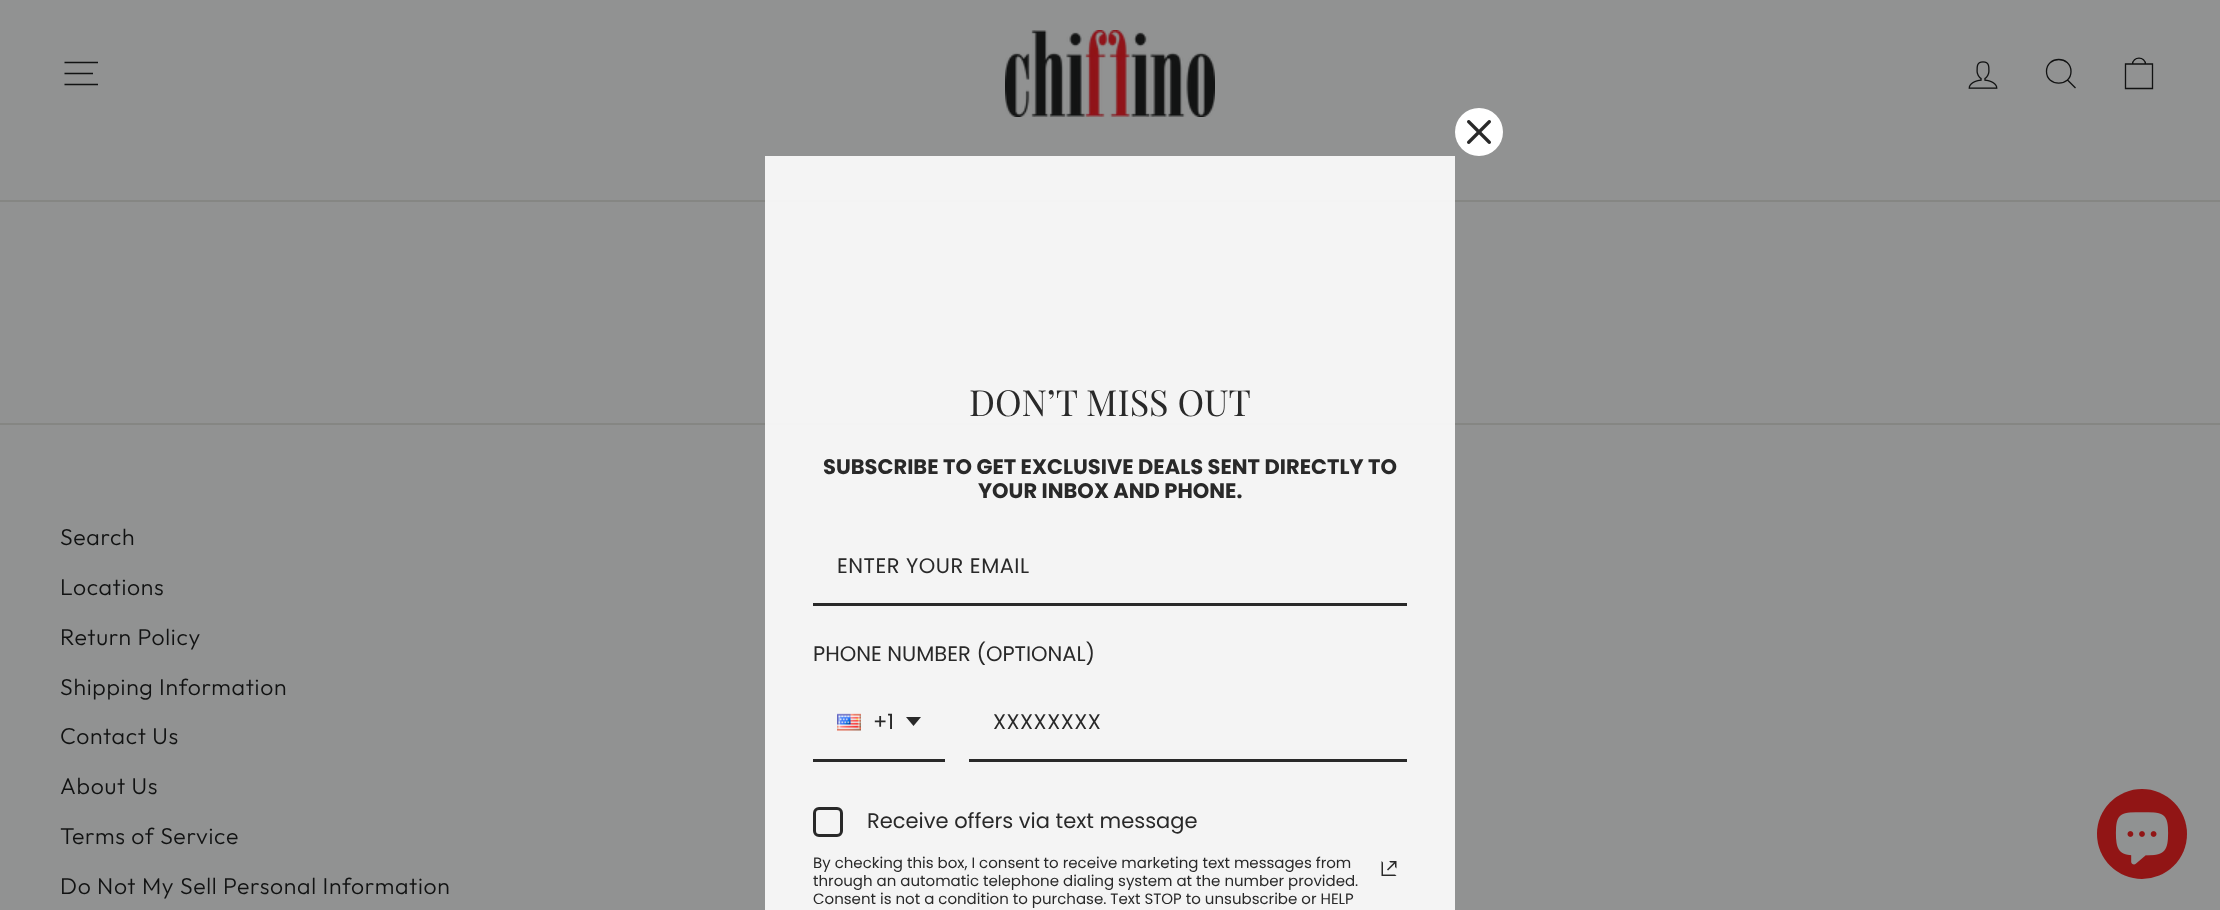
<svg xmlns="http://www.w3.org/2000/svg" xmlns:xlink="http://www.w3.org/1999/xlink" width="2220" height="910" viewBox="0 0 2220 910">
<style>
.cls-1{font:300 23px Outfit;letter-spacing:0.7px;fill:#111212}
.cls-2{font:36px Playfair Display;fill:#292929}
.cls-3{font:bold 21px Poppins;fill:#292929}
.cls-4{font:21px Poppins;letter-spacing:0.5px;fill:#292929}
.cls-5{font:21px Poppins;fill:#292929}
.cls-6{font:15px Poppins;fill:#292929}
</style>
<rect width="100%" height="100%" fill="#919292"/>
<rect fill="#f4f4f4" x="765" y="156" width="690" height="754"/>
<path fill="none" stroke="#111212" stroke-width="1.3" d="M64.5 62.5H98M64.5 73.5H93M64.5 84.5H98"/>
<image xlink:href="image0.png" x="1005" y="30" width="210" height="87"/>
<image xlink:href="image1.png" x="1968" y="61" width="30" height="28"/>
<path fill="none" stroke="#111212" stroke-width="1.3" d="M2071 71.5C2071 87 2046.5 87 2046.5 71.5C2046.5 55.5 2071 55.5 2071 71.5ZM2075.5 88L2067.5 80"/>
<path fill="none" stroke="#111212" stroke-width="1.3" d="M2125.5 64H2152.5V88.5H2125.5ZM2132.5 64.5C2132.5 56 2145.5 56 2145.5 64.5"/>
<rect fill="#858683" x="0" y="200" width="2220" height="2"/>
<rect fill="#f3f3f3" x="765" y="200" width="690" height="2"/>
<rect fill="#858683" x="0" y="423" width="2220" height="2"/>
<rect fill="#f3f3f3" x="765" y="423" width="690" height="2"/>
<circle fill="#ffffff" cx="1479" cy="132" r="24"/>
<image xlink:href="image2.png" x="1467" y="120" width="24" height="24"/>
<rect fill="#292929" x="813" y="603" width="594" height="3"/>
<rect fill="#292929" x="813" y="759" width="132" height="3"/>
<image xlink:href="image3.png" x="837" y="713" width="24" height="18"/>
<path fill="#292929" fill-rule="evenodd" d="M906 717H921L913.5 726Z"/>
<rect fill="#292929" x="969" y="759" width="438" height="3"/>
<rect fill="none" stroke="#292929" stroke-width="3" x="814.5" y="808.5" width="27" height="27" rx="4.5"/>
<image xlink:href="image4.png" x="1381" y="861" width="16" height="15"/>
<circle fill="#911515" cx="2142" cy="834" r="45"/>
<image xlink:href="image5.png" x="2115" y="812" width="54" height="53"/>
<text class="cls-1" x="60" y="545">Search</text>
<text class="cls-1" x="60" y="595">Locations</text>
<text class="cls-1" x="60" y="645">Return Policy</text>
<text class="cls-1" x="60" y="695">Shipping Information</text>
<text class="cls-1" x="60" y="744">Contact Us</text>
<text class="cls-1" x="60" y="794">About Us</text>
<text class="cls-1" x="60" y="844">Terms of Service</text>
<text class="cls-1" x="60" y="894">Do Not My Sell Personal Information</text>
<text class="cls-2" x="969" y="416">DON’T MISS OUT</text>
<text class="cls-3" x="823" y="474">SUBSCRIBE TO GET EXCLUSIVE DEALS SENT DIRECTLY TO</text>
<text class="cls-3" x="978" y="498">YOUR INBOX AND PHONE.</text>
<text class="cls-4" x="837" y="573">ENTER YOUR EMAIL</text>
<text class="cls-5" x="813" y="661">PHONE NUMBER (OPTIONAL)</text>
<text class="cls-5" x="873" y="729">+1</text>
<text class="cls-4" x="993" y="729">XXXXXXXX</text>
<text class="cls-5" x="867" y="828">Receive offers via text message</text>
<text class="cls-6"><tspan x="813" y="868">By checking this box, I consent to receive marketing text messages from</tspan><tspan x="813" y="886">through an automatic telephone dialing system at the number provided.</tspan><tspan x="813" y="904">Consent is not a condition to purchase. Text STOP to unsubscribe or HELP</tspan></text>
</svg>
